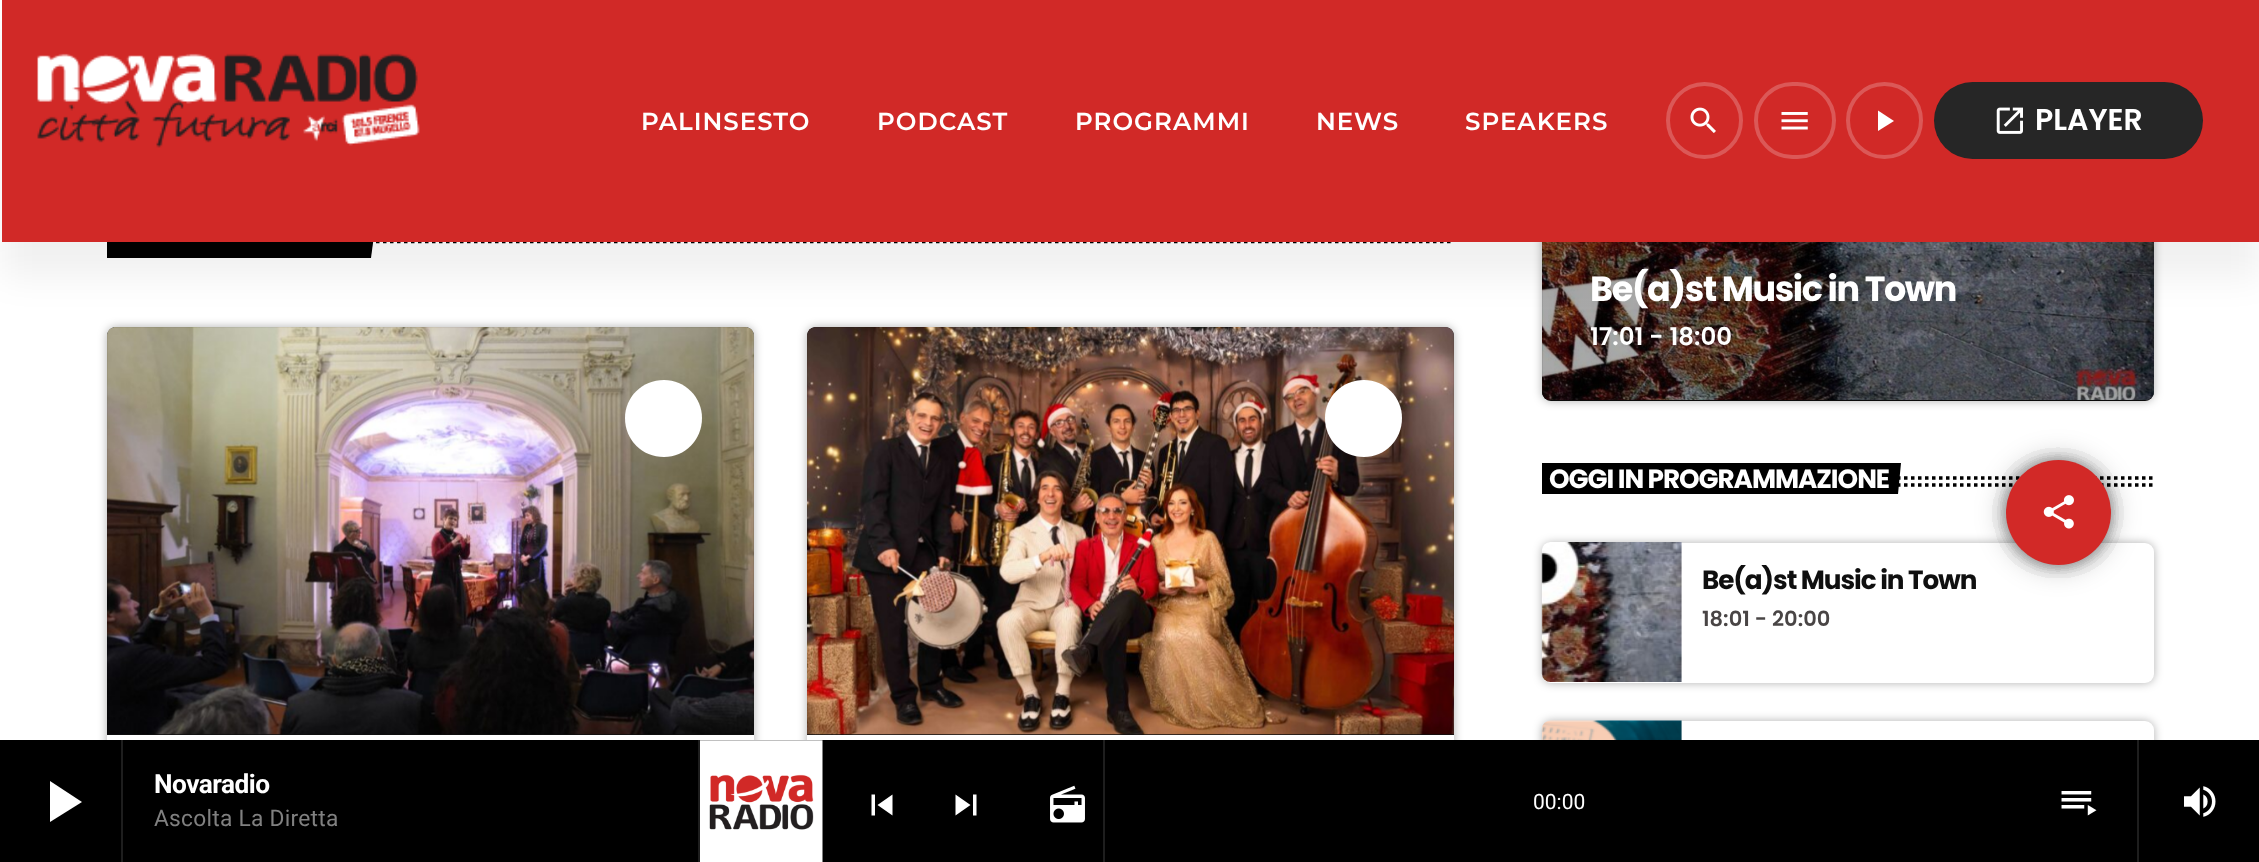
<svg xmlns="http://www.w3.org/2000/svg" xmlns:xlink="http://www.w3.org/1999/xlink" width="2259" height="862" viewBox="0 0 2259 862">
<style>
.cls-1{font:100 24.5px Montserrat;letter-spacing:1px;fill:#ffffff}
.cls-2{font:600 30px Poppins;fill:#ffffff}
.cls-3{font:bold 35px Poppins;letter-spacing:-1.4px;fill:#ffffff}
.cls-4{font:600 24.5px Poppins;fill:#ffffff}
.cls-5{font:bold 26.25px Poppins;letter-spacing:-1.05px;fill:#ffffff}
.cls-6{font:bold 26.25px Poppins;letter-spacing:-1.05px;fill:#0f0f0f}
.cls-7{font:600 21px Poppins;fill:#494545}
.cls-8{font:bold 26.25px Roboto;letter-spacing:-0.5px;fill:#ffffff}
.cls-9{font:22.75px Roboto;letter-spacing:0.25px;fill:#808080}
.cls-10{font:21px Roboto;fill:#ffffff}
</style>
<defs>
<clipPath id="clip1"><rect x="107" y="207" width="275" height="52"/></clipPath>
<linearGradient id="g1" gradientUnits="userSpaceOnUse" x1="1848" y1="16" x2="1848" y2="401"><stop offset="0" stop-color="#000000" stop-opacity="0"/><stop offset="0.4" stop-color="#000000" stop-opacity="0"/><stop offset="0.65" stop-color="#000000" stop-opacity="0.34"/><stop offset="1" stop-color="#000000" stop-opacity="0.34"/></linearGradient>
<clipPath id="clip2"><rect x="1542" y="462" width="366" height="32"/></clipPath>
</defs>
<rect width="100%" height="100%" fill="#ffffff"/>
<path fill="none" stroke="#000000" stroke-width="3.5" stroke-dasharray="3.5 3.5" d="M117 241.5H1451"/>
<g clip-path="url(#clip1)">
<path fill="#000000" d="M92 206H378L371 258H85Z"/>
</g>
<rect fill="#000000" fill-opacity="0.31" filter="blur(5px)" x="107" y="327" width="647" height="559" rx="9"/>
<rect fill="#ffffff" x="107" y="327" width="647" height="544" rx="9"/>
<path fill="#111111" d="M116 327H745C750 327 754 331 754 336V735H107V336C107 331 111 327 116 327Z"/>
<image xlink:href="image4.png" x="107" y="327" width="647" height="408"/>
<rect fill="#000000" fill-opacity="0.31" filter="blur(5px)" x="807" y="327" width="647" height="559" rx="9"/>
<rect fill="#ffffff" x="807" y="327" width="647" height="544" rx="9"/>
<path fill="#111111" d="M816 327H1445C1450 327 1454 331 1454 336V735H807V336C807 331 811 327 816 327Z"/>
<image xlink:href="image5.png" x="807" y="327" width="647" height="408"/>
<rect fill="#000000" fill-opacity="0.31" filter="blur(5px)" x="1542" y="16" width="612" height="385" rx="9"/>
<rect fill="#111111" x="1542" y="16" width="612" height="385" rx="9"/>
<image xlink:href="image6.png" x="1542" y="242" width="612" height="158"/>
<rect fill="url(#g1)" x="1542" y="16" width="612" height="385" rx="9"/>
<rect fill="#000000" fill-opacity="0.06" filter="blur(17.5px)" x="2" y="35" width="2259" height="242"/>
<rect fill="#d12927" x="2" y="0" width="2257" height="242"/>
<image xlink:href="image0.png" x="37" y="53" width="383" height="95"/>
<circle fill="none" stroke="#db5857" stroke-width="4" cx="1704.5" cy="120.5" r="36.5"/>
<image xlink:href="image1.png" x="1690" y="107" width="26" height="26"/>
<rect fill="none" stroke="#db5857" stroke-width="4" x="1756" y="84" width="78" height="73" rx="36.5"/>
<image xlink:href="image2.png" x="1781" y="112" width="27" height="18"/>
<circle fill="none" stroke="#db5857" stroke-width="4" cx="1884.5" cy="120.5" r="36.5"/>
<path fill="#ffffff" d="M1878 110.5L1894 121L1878 131Z"/>
<rect fill="#262626" x="1934" y="82" width="269" height="77" rx="38.5"/>
<image xlink:href="image3.png" x="1996" y="107" width="27" height="27"/>
<path fill="#ffffff" d="M664 380C685 380 702 397 702 418C702 440 685 457 664 457C642 457 625 440 625 418C625 397 642 380 664 380Z"/>
<path fill="#ffffff" d="M1364 380C1385 380 1402 397 1402 418C1402 440 1385 457 1364 457C1342 457 1325 440 1325 418C1325 397 1342 380 1364 380Z"/>
<path fill="none" stroke="#000000" stroke-width="3.5" stroke-dasharray="3.5 3.5" d="M1547 478H2152.5"/>
<path fill="none" stroke="#000000" stroke-width="3.5" stroke-dasharray="3.5 3.5" d="M1547 485H2152.5"/>
<g clip-path="url(#clip2)">
<path fill="#000000" d="M1539 463H1901L1898 494H1535Z"/>
</g>
<rect fill="#000000" fill-opacity="0.31" filter="blur(5px)" x="1542" y="543" width="612" height="140" rx="9"/>
<rect fill="#ffffff" x="1542" y="543" width="612" height="140" rx="9"/>
<image xlink:href="image7.png" x="1541" y="542" width="141" height="140"/>
<rect fill="#000000" fill-opacity="0.31" filter="blur(5px)" x="1542" y="721" width="612" height="140" rx="9"/>
<rect fill="#ffffff" x="1542" y="721" width="612" height="140" rx="9"/>
<image xlink:href="image8.png" x="1541" y="720" width="141" height="20"/>
<rect fill="#000000" fill-opacity="0.2" filter="blur(13px)" x="2000" y="455" width="116" height="116" rx="58"/>
<rect fill="#000000" fill-opacity="0.2" filter="blur(13px)" x="2018" y="473" width="80" height="80" rx="40"/>
<rect fill="#000000" fill-opacity="0.2" filter="blur(13px)" x="2018" y="473" width="80" height="80" rx="40"/>
<rect fill="#000000" fill-opacity="0.2" filter="blur(13px)" x="2018" y="473" width="80" height="80" rx="40"/>
<rect fill="#000000" fill-opacity="0.2" filter="blur(13px)" x="2018" y="473" width="80" height="80" rx="40"/>
<rect fill="#000000" fill-opacity="0.2" filter="blur(13px)" x="2018" y="473" width="80" height="80" rx="40"/>
<rect fill="#000000" fill-opacity="0.2" filter="blur(13px)" x="2018" y="473" width="80" height="80" rx="40"/>
<rect fill="#000000" fill-opacity="0.2" filter="blur(13px)" x="2018" y="473" width="80" height="80" rx="40"/>
<rect fill="#000000" fill-opacity="0.2" filter="blur(13px)" x="2018" y="473" width="80" height="80" rx="40"/>
<rect fill="#000000" fill-opacity="0.2" filter="blur(13px)" x="2018" y="473" width="80" height="80" rx="40"/>
<circle fill="#d22927" cx="2058.5" cy="512.5" r="52.5"/>
<image xlink:href="image9.png" x="2043" y="495" width="31" height="34"/>
<rect fill="#000000" x="0" y="740" width="2259" height="122"/>
<rect fill="#1e1e1e" x="698" y="740" width="2" height="122"/>
<rect fill="#1e1e1e" x="121" y="740" width="2" height="122"/>
<path fill="#ffffff" d="M50 781L82 802L50 822Z"/>
<image xlink:href="image10.png" x="700" y="740" width="123" height="122"/>
<rect fill="#1e1e1e" x="1103" y="740" width="2" height="122"/>
<path fill="#ffffff" d="M877.5 805L892.5 794.5V815.5ZM871.5 794.5H875V815.5H871.5Z"/>
<path fill="#ffffff" d="M973 794.5H976.5V815.5H973ZM955.5 815.5V794.5L970.5 805Z"/>
<image xlink:href="image11.png" x="1050" y="785" width="35" height="38"/>
<image xlink:href="image12.png" x="2061" y="791" width="36" height="25"/>
<rect fill="#1e1e1e" x="2137" y="740" width="2" height="122"/>
<image xlink:href="image13.png" x="2184" y="786" width="32" height="31"/>
<text class="cls-1" x="641" y="130">PALINSESTO</text>
<text class="cls-1" x="877" y="130">PODCAST</text>
<text class="cls-1" x="1075" y="130">PROGRAMMI</text>
<text class="cls-1" x="1316" y="130">NEWS</text>
<text class="cls-1" x="1465" y="130">SPEAKERS</text>
<text class="cls-2" x="2035" y="130">PLAYER</text>
<text class="cls-3" x="1590" y="301">Be(a)st Music in Town</text>
<text class="cls-4" x="1590" y="345">17:01 - 18:00</text>
<text class="cls-5" x="1549" y="488">OGGI IN PROGRAMMAZIONE</text>
<text class="cls-6" x="1702" y="589">Be(a)st Music in Town</text>
<text class="cls-7" x="1702" y="626">18:01 - 20:00</text>
<text class="cls-8" x="154" y="793">Novaradio</text>
<text class="cls-9" x="154" y="826">Ascolta La Diretta</text>
<text class="cls-10" x="1533" y="809">00:00</text>
</svg>
